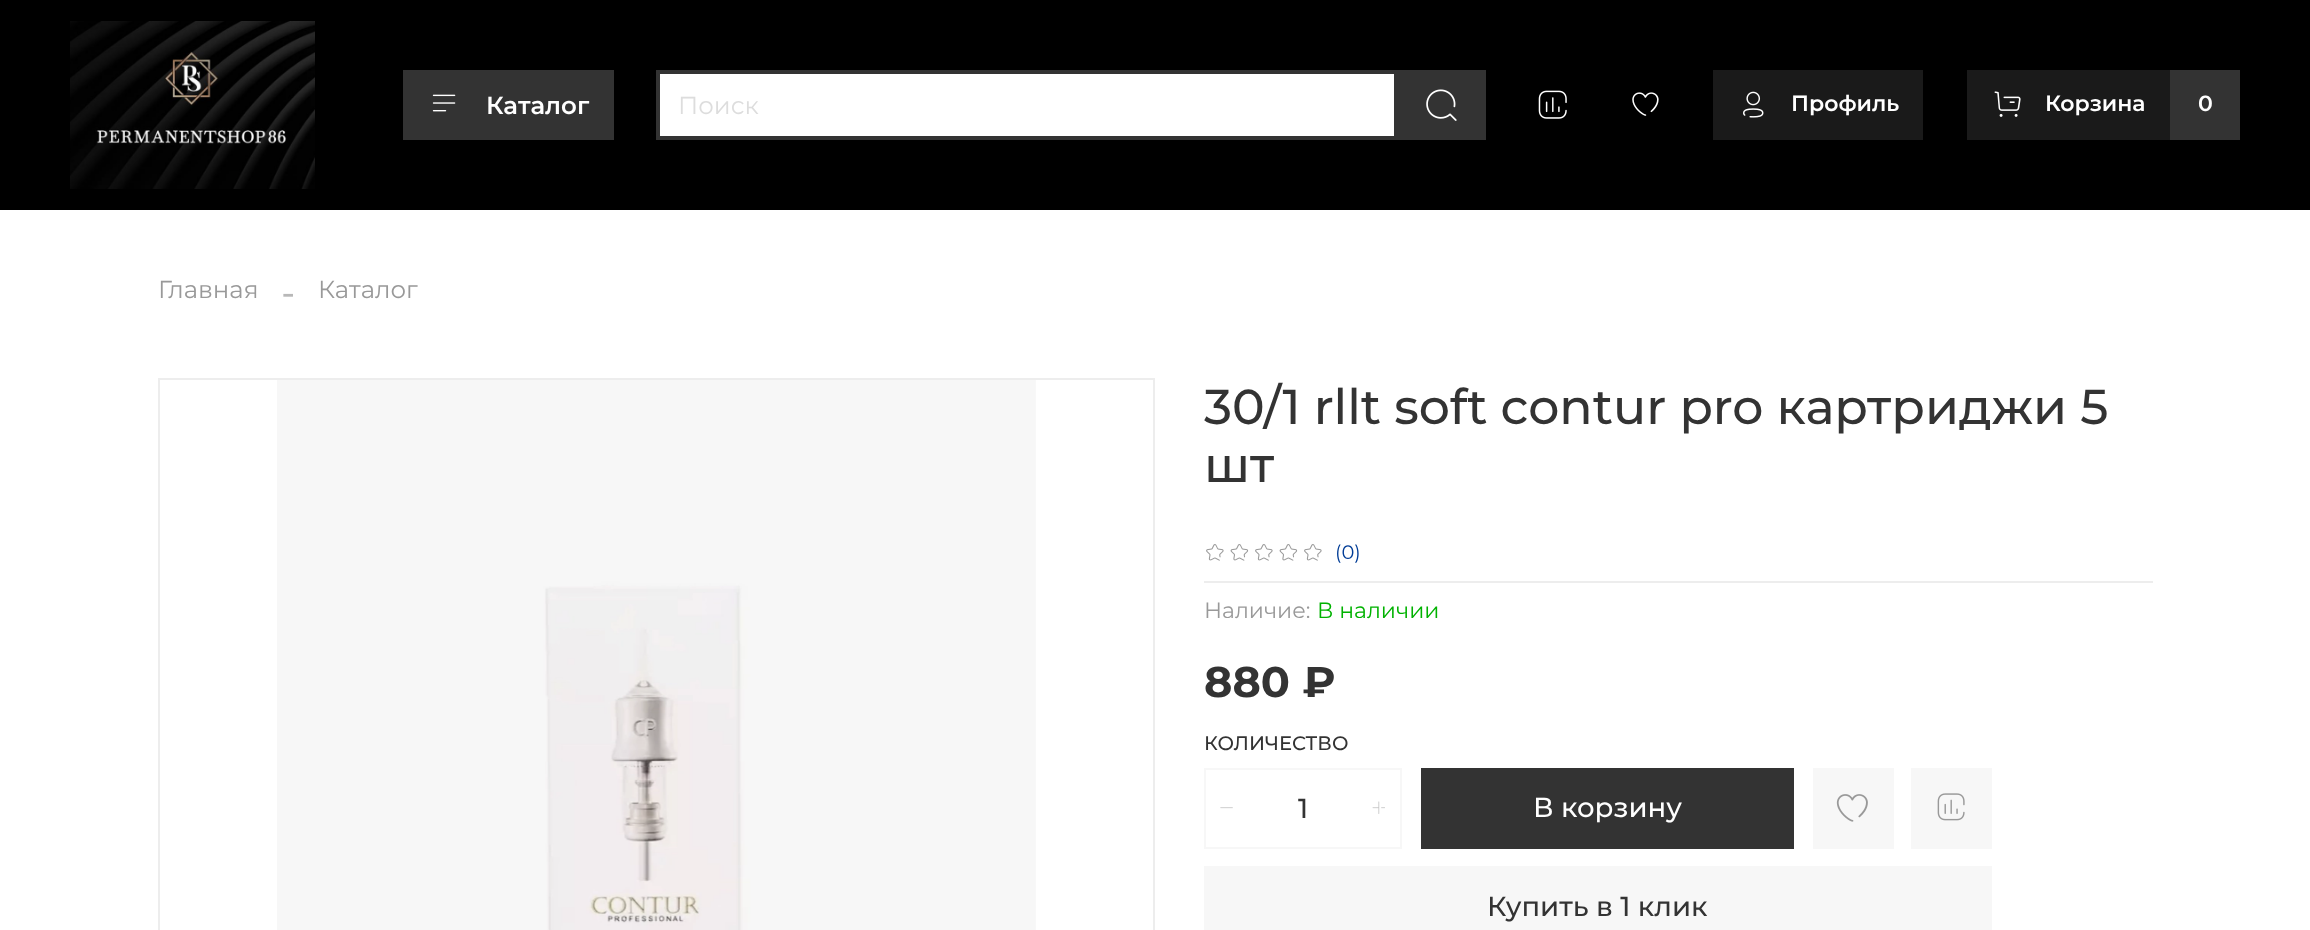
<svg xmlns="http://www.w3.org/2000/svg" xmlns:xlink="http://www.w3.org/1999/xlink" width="2310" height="930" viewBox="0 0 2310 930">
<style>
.cls-1{font:600 24.5px Montserrat;fill:#ffffff}
.cls-2{font:24.5px Montserrat;fill:#dddddd}
.cls-3{font:600 22px Montserrat;fill:#ffffff}
.cls-4{font:24.5px Montserrat;fill:#999999}
.cls-5{font:37px Liberation Serif;fill:#b8b8b8}
.cls-6{font:500 49px Montserrat;fill:#333333}
.cls-7{font:19.5px Montserrat;fill:#003c96}
.cls-8{font:22px Montserrat;fill:#999999}
.cls-9{font:22px Montserrat;fill:#00b200}
.cls-10{font:bold 43px Montserrat;fill:#333333}
.cls-11{font:500 19.5px Montserrat;fill:#333333}
.cls-12{font:500 27.5px Montserrat;fill:#333333}
.cls-13{font:500 27.5px Montserrat;fill:#ffffff}
</style>
<rect width="100%" height="100%" fill="#ffffff"/>
<rect fill="#000000" x="0" y="0" width="2310" height="210"/>
<image xlink:href="image0.png" x="70" y="21" width="245" height="168"/>
<rect fill="#333333" x="403" y="70" width="211" height="70"/>
<image xlink:href="image1.png" x="432" y="94" width="24" height="18"/>
<rect fill="#ffffff" stroke="#333333" stroke-width="4" x="658" y="72" width="738" height="66"/>
<rect fill="#333333" x="1398" y="70" width="88" height="70"/>
<image xlink:href="image2.png" x="1426" y="89" width="31" height="32"/>
<image xlink:href="image3.png" x="1538" y="90" width="29" height="29"/>
<image xlink:href="image4.png" x="1632" y="92" width="27" height="24"/>
<rect fill="#1a1a1a" x="1713" y="70" width="210" height="70"/>
<image xlink:href="image5.png" x="1743" y="91" width="21" height="27"/>
<rect fill="#1a1a1a" x="1967" y="70" width="203" height="70"/>
<image xlink:href="image6.png" x="1994" y="91" width="27" height="26"/>
<rect fill="#333333" x="2170" y="70" width="70" height="70"/>
<rect fill="none" stroke="#ededed" stroke-width="2" x="159" y="379" width="995" height="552"/>
<image xlink:href="image7.png" x="277" y="380" width="759" height="550"/>
<image xlink:href="image8.png" x="1206" y="544" width="18" height="17"/>
<image xlink:href="image9.png" x="1230" y="544" width="19" height="17"/>
<image xlink:href="image8.png" x="1255" y="544" width="18" height="17"/>
<image xlink:href="image9.png" x="1279" y="544" width="19" height="17"/>
<image xlink:href="image8.png" x="1304" y="544" width="18" height="17"/>
<rect fill="#ededed" x="1204" y="581" width="949" height="2"/>
<rect fill="none" stroke="#f7f7f7" stroke-width="2" x="1205" y="769" width="196" height="79"/>
<image xlink:href="image10.png" x="1220" y="807" width="13" height="2"/>
<image xlink:href="image11.png" x="1372" y="801" width="13" height="13"/>
<rect fill="#333333" x="1421" y="768" width="373" height="81"/>
<rect fill="#f7f7f7" x="1813" y="768" width="81" height="81"/>
<image xlink:href="image12.png" x="1836" y="794" width="32" height="28"/>
<rect fill="#f7f7f7" x="1911" y="768" width="81" height="81"/>
<image xlink:href="image13.png" x="1937" y="793" width="28" height="28"/>
<rect fill="#f7f7f7" x="1204" y="866" width="788" height="64"/>
<text class="cls-1" x="486" y="114">Каталог</text>
<text class="cls-2" x="678" y="114">Поиск</text>
<text class="cls-3" x="1791" y="111">Профиль</text>
<text class="cls-3" x="2045" y="111">Корзина</text>
<text class="cls-3" x="2198" y="111">0</text>
<text class="cls-4" x="158" y="298">Главная</text>
<text class="cls-5" x="282" y="304">-</text>
<text class="cls-4" x="318" y="298">Каталог</text>
<text class="cls-6"><tspan x="1204" y="424">30/1 rllt soft contur pro картриджи 5</tspan><tspan x="1204" y="482">шт</tspan></text>
<text class="cls-7" x="1335" y="559">(0)</text>
<text class="cls-8" x="1204" y="618">Наличие:</text>
<text class="cls-9" x="1317" y="618">В наличии</text>
<text class="cls-10" x="1204" y="697">880 ₽</text>
<text class="cls-11" x="1204" y="750">КОЛИЧЕСТВО</text>
<text class="cls-12" x="1298" y="818">1</text>
<text class="cls-13" x="1533" y="817">В корзину</text>
<text class="cls-12" x="1487" y="916">Купить в 1 клик</text>
</svg>
